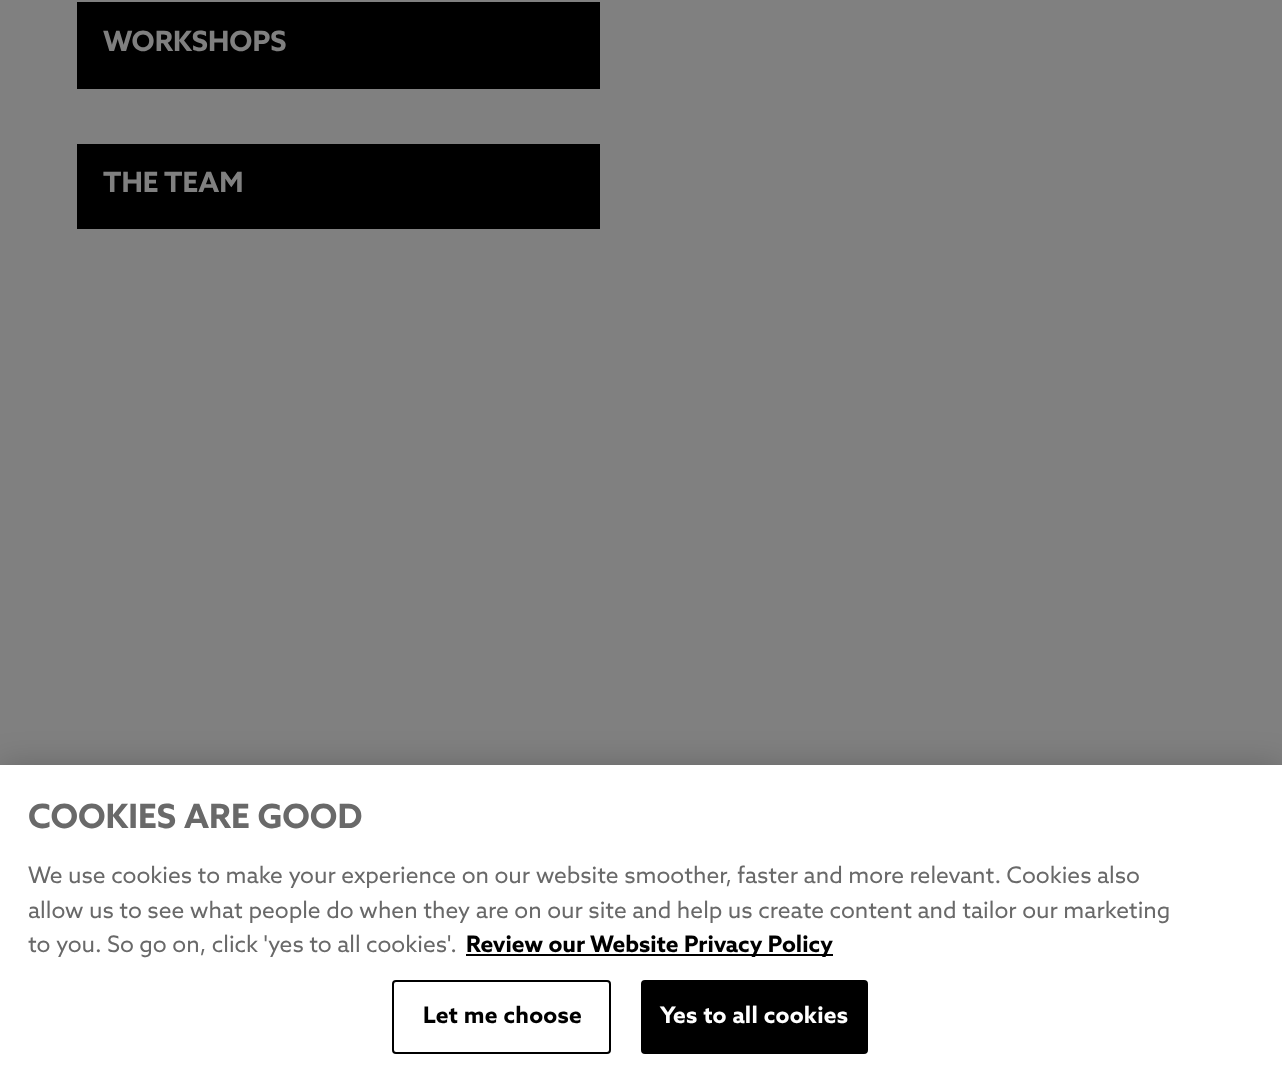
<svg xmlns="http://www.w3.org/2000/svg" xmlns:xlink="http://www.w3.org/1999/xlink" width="1282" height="1080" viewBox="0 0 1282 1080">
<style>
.cls-1{font:bold 28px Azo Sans;fill:#808080}
.cls-2{font:bold 33.5px Azo Sans;fill:#696969}
.cls-3{font:22.75px Azo Sans;fill:#696969}
.cls-4{font:bold 22.75px Azo Sans;fill:#000000}
.cls-5{font:bold 22.75px Azo Sans;letter-spacing:0.25px;fill:#000000}
.cls-6{font:bold 22.75px Azo Sans;letter-spacing:0.25px;fill:#ffffff}
</style>
<rect width="100%" height="100%" fill="#808080"/>
<rect fill="#000000" x="77" y="2" width="523" height="87"/>
<rect fill="#000000" x="77" y="144" width="523" height="85"/>
<rect fill="#000000" fill-opacity="0.2" filter="blur(16px)" x="0" y="765" width="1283" height="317"/>
<rect fill="#ffffff" x="0" y="765" width="1282" height="315"/>
<rect fill="#000000" x="466" y="954" width="367" height="2"/>
<rect fill="none" stroke="#000000" stroke-width="2" x="393" y="981" width="217" height="72" rx="3"/>
<rect fill="#000000" stroke="#000000" stroke-width="2" x="642" y="981" width="225" height="72" rx="3"/>
<text class="cls-1" x="103" y="51">WORKSHOPS</text>
<text class="cls-1" x="103" y="192">THE TEAM</text>
<text class="cls-2" x="28" y="828">COOKIES ARE GOOD</text>
<text class="cls-3"><tspan x="28" y="883">We use cookies to make your experience on our website smoother, faster and more relevant. Cookies also</tspan><tspan x="28" y="918">allow us to see what people do when they are on our site and help us create content and tailor our marketing</tspan><tspan x="28" y="952">to you. So go on, click 'yes to all cookies'.</tspan></text>
<text class="cls-4" x="466" y="952">Review our Website Privacy Policy</text>
<text class="cls-5" x="423" y="1023">Let me choose</text>
<text class="cls-6" x="660" y="1023">Yes to all cookies</text>
</svg>
